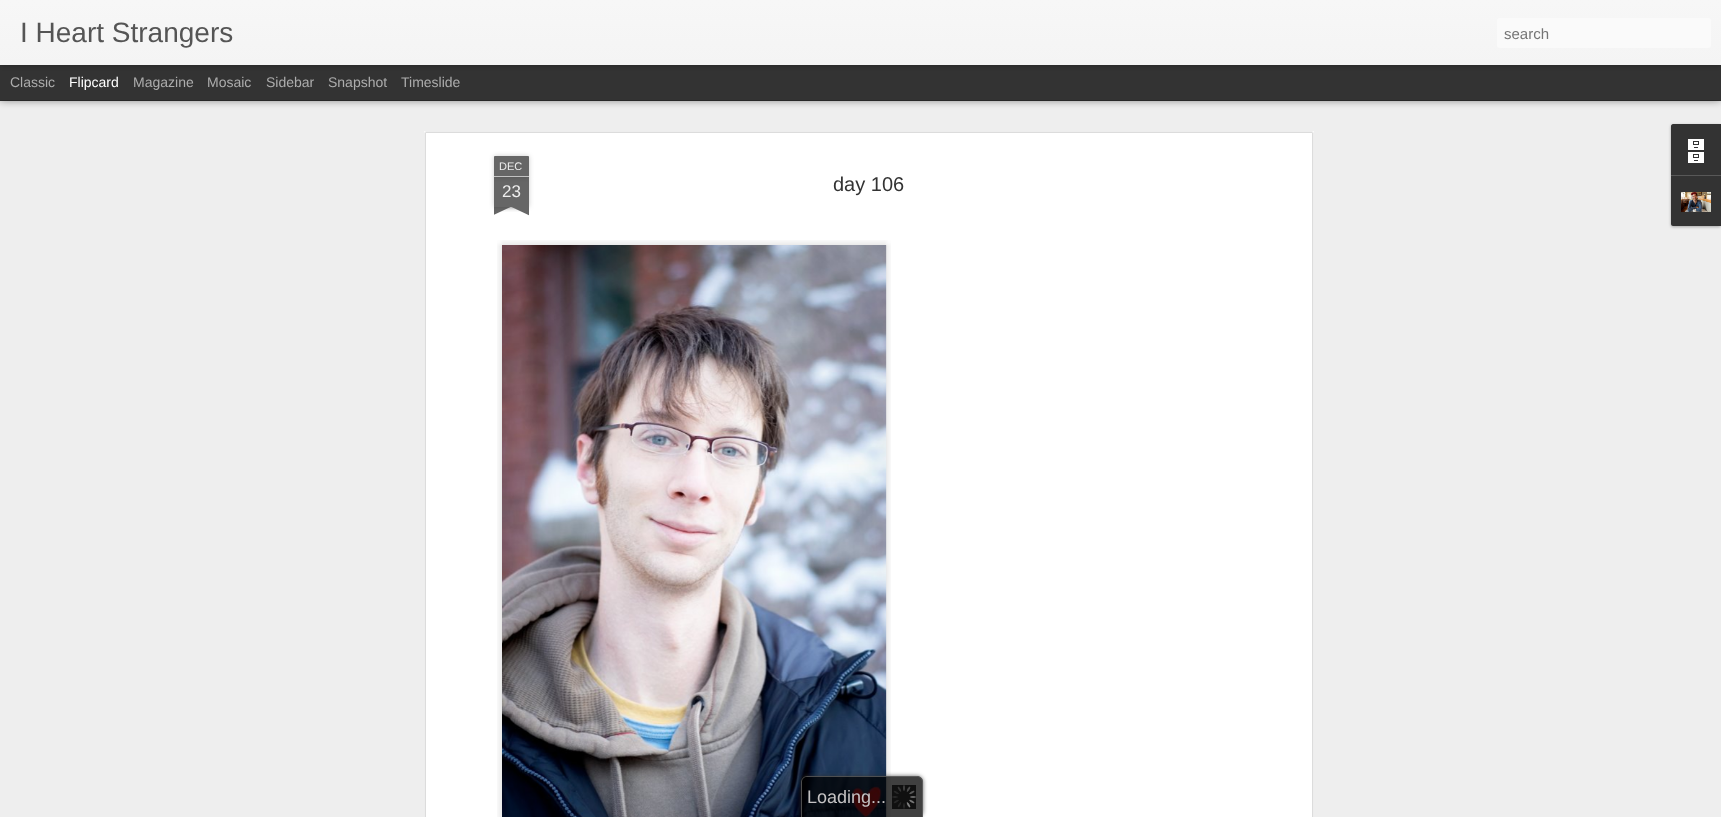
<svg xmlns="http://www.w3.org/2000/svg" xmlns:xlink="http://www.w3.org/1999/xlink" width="1721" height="817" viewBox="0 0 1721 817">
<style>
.cls-1{font:28px Liberation Sans;fill:#555555}
.cls-2{font:15px Liberation Sans;fill:#757575}
.cls-3{font:14px Liberation Sans;fill:#adadad}
.cls-4{font:14px Liberation Sans;fill:#ffffff}
.cls-5{font:11px Liberation Sans;fill:#eeeeee}
.cls-6{font:17px Liberation Sans;fill:#eeeeee}
.cls-7{font:20px Liberation Sans;fill:#333333}
.cls-8{font:18px Liberation Sans;fill:#c4c2c3}
</style>
<defs>
<linearGradient id="g1" gradientUnits="userSpaceOnUse" x1="0" y1="0" x2="0" y2="65"><stop offset="0" stop-color="#f7f7f7"/><stop offset="1" stop-color="#f4f4f4"/></linearGradient>
<clipPath id="clip1"><rect x="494" y="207" width="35" height="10"/></clipPath>
<clipPath id="clip2"><rect x="494" y="207" width="35" height="10"/></clipPath>
<clipPath id="clip3"><path d="M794 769H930V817H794ZM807 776H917C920.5 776 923 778.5 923 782V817H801V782C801 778.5 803.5 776 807 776Z" clip-rule="evenodd"/></clipPath>
</defs>
<rect width="100%" height="100%" fill="#333333"/>
<rect fill="#eeeeee" x="0" y="101" width="1721" height="716"/>
<rect fill="#000000" fill-opacity="0.5" filter="blur(4px)" x="0" y="65" width="1721" height="35"/>
<rect fill="#333333" x="0" y="65" width="1721" height="35"/>
<rect fill="#000000" fill-opacity="0.3" filter="blur(2.5px)" x="0" y="0" width="1721" height="65"/>
<rect fill="url(#g1)" x="0" y="0" width="1721" height="65"/>
<rect fill="#fafafa" x="1497" y="18" width="214" height="30" rx="3"/>
<rect fill="#ffffff" x="424" y="131" width="890" height="686"/>
<image xlink:href="image0.png" x="424" y="131" width="890" height="686"/>
<rect fill="#000000" fill-opacity="0.2" filter="blur(2.5px)" x="494" y="177" width="35" height="30"/>
<rect fill="#666666" x="494" y="177" width="35" height="30"/>
<rect fill="#000000" fill-opacity="0.2" filter="blur(2.5px)" x="494" y="156" width="35" height="21" rx="1"/>
<path fill="#666666" d="M495 156H528C528.5 156 529 156.5 529 157V177H494V157C494 156.5 494.5 156 495 156Z"/>
<rect fill="#c2c2c2" x="494" y="176" width="35" height="1"/>
<g clip-path="url(#clip1)">
<rect fill="#000000" fill-opacity="0.2" filter="blur(2.5px)" x="485" y="197" width="50" height="10"/>
</g>
<g clip-path="url(#clip2)">
<path fill="#666666" d="M485 208L530 187L534 196L489 217Z"/>
</g>
<g clip-path="url(#clip1)">
<rect fill="#000000" fill-opacity="0.2" filter="blur(2.5px)" x="488" y="197" width="50" height="10"/>
</g>
<g clip-path="url(#clip2)">
<path fill="#666666" d="M492 187L537 208L533 217L488 196Z"/>
</g>
<image xlink:href="image1.png" x="497" y="240" width="394" height="577"/>
<image xlink:href="image2.png" x="502" y="245" width="385" height="572"/>
<rect fill="#000000" fill-opacity="0.3" filter="blur(1.5px)" x="1671" y="125" width="50" height="102" rx="2"/>
<path fill="#333333" d="M1673 124H1721V175H1671V126C1671 125 1672 124 1673 124Z"/>
<image xlink:href="image3.png" x="1688" y="139" width="16" height="24"/>
<path fill="#333333" d="M1671 175H1721V226H1673C1672 226 1671 225 1671 224Z"/>
<rect fill="#585858" x="1671" y="175" width="50" height="1"/>
<image xlink:href="image4.png" x="1681" y="192" width="30" height="20"/>
<g clip-path="url(#clip3)">
<rect fill="#333333" fill-opacity="0.75" filter="blur(2px)" x="801" y="776" width="122" height="41" rx="6"/>
</g>
<path fill="#000000" fill-opacity="0.75" d="M807 776H917C920.5 776 923 778.5 923 782V817H801V782C801 778.5 803.5 776 807 776Z"/>
<path fill="#666666" fill-opacity="0.75" fill-rule="evenodd" d="M807 776H917C920 776 923 779 923 782V817H801V782C801 779 804 776 807 776ZM807 777H917C920 777 922 779 922 782V817H802V782C802 779 804 777 807 777Z"/>
<image xlink:href="image5.png" x="892" y="785" width="24" height="24"/>
<text class="cls-1" x="20" y="42">I Heart Strangers</text>
<text class="cls-2" x="1504" y="39">search</text>
<text class="cls-3" x="10" y="87">Classic</text>
<text class="cls-4" x="69" y="87">Flipcard</text>
<text class="cls-3" x="133" y="87">Magazine</text>
<text class="cls-3" x="207" y="87">Mosaic</text>
<text class="cls-3" x="266" y="87">Sidebar</text>
<text class="cls-3" x="328" y="87">Snapshot</text>
<text class="cls-3" x="401" y="87">Timeslide</text>
<text class="cls-5" x="499" y="170">DEC</text>
<text class="cls-6" x="502" y="197">23</text>
<text class="cls-7" x="833" y="191">day 106</text>
<text class="cls-8" x="807" y="803">Loading</text>
<text class="cls-8" x="871" y="803">...</text>
</svg>
